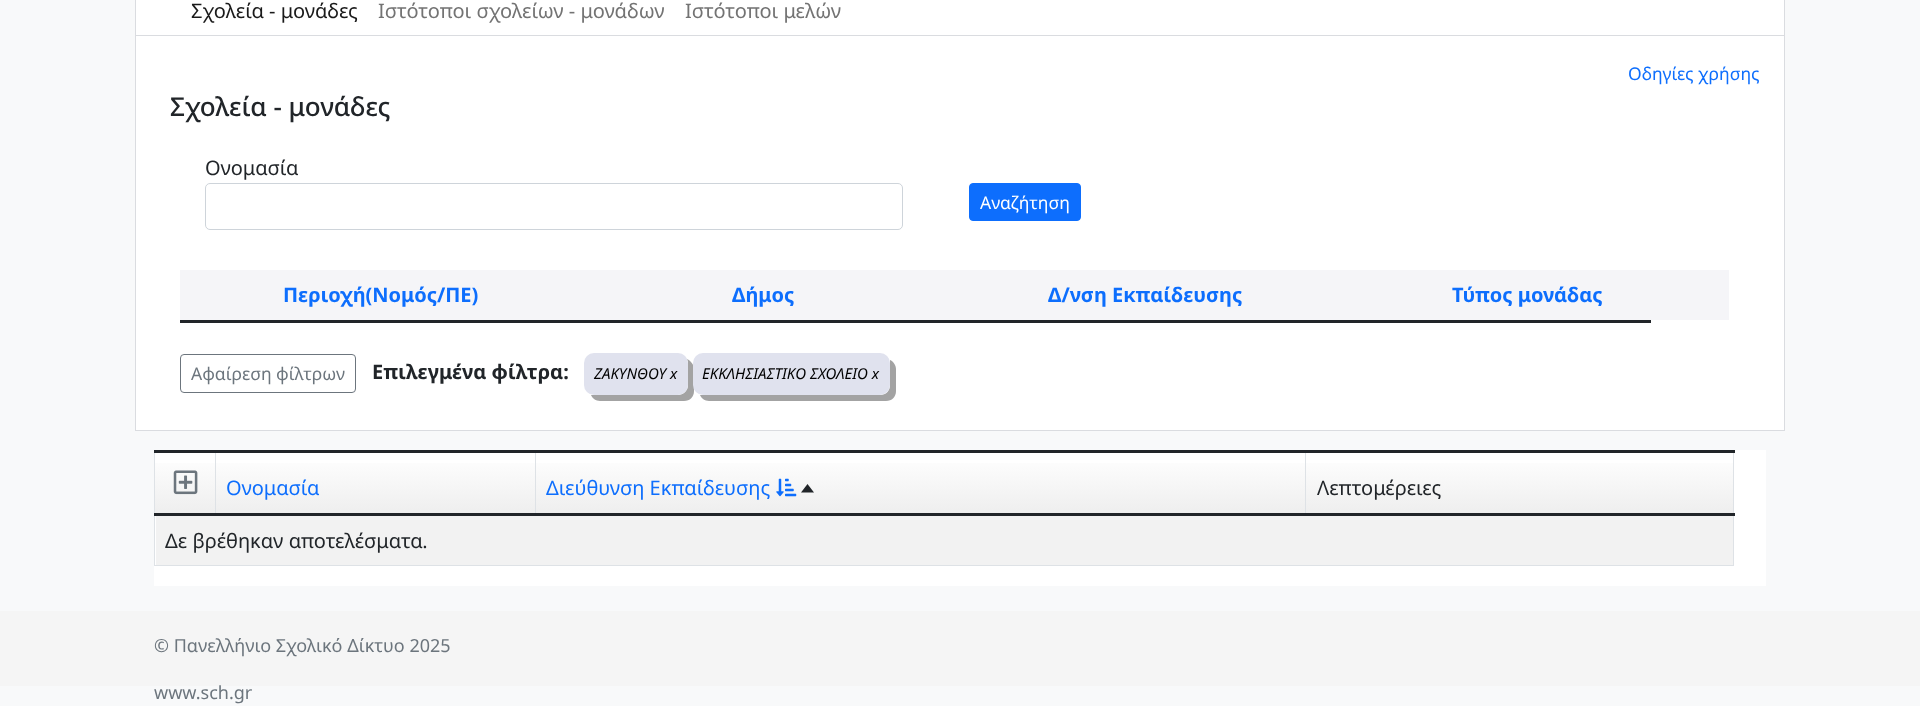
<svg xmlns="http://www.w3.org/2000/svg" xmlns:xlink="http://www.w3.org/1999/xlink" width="1920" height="706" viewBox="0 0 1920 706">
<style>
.cls-1{font:20px Noto Sans;fill:#1a1a1a}
.cls-2{font:20px Noto Sans;fill:#737373}
.cls-3{font:17.5px Noto Sans;fill:#0d6efd}
.cls-4{font:500 26px Noto Sans;fill:#212529}
.cls-5{font:20px Noto Sans;fill:#212529}
.cls-6{font:17.5px Noto Sans;fill:#ffffff}
.cls-7{font:bold 20px Noto Sans;fill:#0d6efd}
.cls-8{font:17.5px Noto Sans;fill:#6c757d}
.cls-9{font:bold 20px Noto Sans;fill:#212529}
.cls-10{font:italic 15px Noto Sans;fill:#000000}
.cls-11{font:20px Noto Sans;fill:#0d6efd}
.cls-12{font:18px Noto Sans;fill:#6c757d}
</style>
<defs>
<linearGradient id="g1" gradientUnits="userSpaceOnUse" x1="944" y1="454" x2="944" y2="514"><stop offset="0" stop-color="#ffffff"/><stop offset="1" stop-color="#eeeeee"/></linearGradient>
</defs>
<rect width="100%" height="100%" fill="#f8f9fa"/>
<rect fill="#ffffff" x="136" y="0" width="1648" height="35"/>
<rect fill="#dadce0" x="1784" y="0" width="1" height="35"/>
<rect fill="#dadce0" x="135" y="0" width="1" height="35"/>
<rect fill="#ffffff" stroke="#dadce0" x="135.5" y="35.5" width="1649" height="395"/>
<rect fill="none" stroke="#ced4da" x="205.5" y="183.5" width="697" height="46" rx="4.5"/>
<rect fill="#0d6efd" stroke="#0d6efd" x="969.5" y="183.5" width="111" height="37" rx="3.5"/>
<rect fill="#f5f5f8" x="180" y="270" width="1549" height="50"/>
<rect fill="#212529" x="180" y="320" width="1471" height="3"/>
<rect fill="none" stroke="#6c757d" x="180.5" y="354.5" width="175" height="38" rx="3.5"/>
<path fill="#a3a3a3" d="M591 395C592 398 596 401 600 401H684C690 401 694 397 694 391V369C694 365 691 361 687 359L688 362V385C688 391 683 395 678 395H594Z"/>
<rect fill="#e0e2ee" x="584" y="353" width="104" height="42" rx="10"/>
<path fill="#a3a3a3" d="M700 395C701 398 705 401 709 401H886C892 401 896 397 896 391V369C896 365 893 361 890 360V362V385C890 391 886 395 880 395H702Z"/>
<rect fill="#e0e2ee" x="693" y="353" width="197" height="42" rx="10"/>
<rect fill="#ffffff" x="154" y="450" width="1612" height="136"/>
<rect fill="url(#g1)" x="155" y="463" width="1578" height="50"/>
<rect fill="#dee2e6" x="215" y="450" width="1" height="65"/>
<rect fill="#dee2e6" x="535" y="450" width="1" height="65"/>
<rect fill="#dee2e6" x="1305" y="450" width="1" height="65"/>
<rect fill="#dee2e6" x="154" y="565" width="1580" height="1"/>
<rect fill="#dee2e6" x="1733" y="450" width="1" height="116"/>
<rect fill="#dee2e6" x="154" y="450" width="1" height="116"/>
<rect fill="#212529" x="154" y="450" width="1581" height="3"/>
<image xlink:href="image0.png" x="173" y="470" width="25" height="25"/>
<image xlink:href="image1.png" x="776" y="478" width="21" height="19"/>
<path fill="#212529" d="M814 492.5H801L807.5 484Z"/>
<rect fill="#212529" x="154" y="513" width="1581" height="3"/>
<rect fill="#f2f2f2" x="156" y="516" width="1577" height="49"/>
<rect fill="#f5f5f5" x="0" y="611" width="1920" height="75"/>
<text class="cls-1" x="191" y="18">Σχολεία - μονάδες</text>
<text class="cls-2" x="378" y="18">Ιστότοποι σχολείων - μονάδων</text>
<text class="cls-2" x="685" y="18">Ιστότοποι μελών</text>
<text class="cls-3" x="1628" y="80">Οδηγίες χρήσης</text>
<text class="cls-4" x="170" y="116">Σχολεία - μονάδες</text>
<text class="cls-5" x="205" y="175">Ονομασία</text>
<text class="cls-6" x="980" y="209">Αναζήτηση</text>
<text class="cls-7" x="283" y="302">Περιοχή(Νομός/ΠΕ)</text>
<text class="cls-7" x="732" y="302">Δήμος</text>
<text class="cls-7" x="1048" y="302">Δ/νση Εκπαίδευσης</text>
<text class="cls-7" x="1452" y="302">Τύπος μονάδας</text>
<text class="cls-8" x="191" y="380">Αφαίρεση φίλτρων</text>
<text class="cls-9" x="372" y="379">Επιλεγμένα φίλτρα:</text>
<text class="cls-10" x="594" y="379">ΖΑΚΥΝΘΟΥ x</text>
<text class="cls-10" x="702" y="379">ΕΚΚΛΗΣΙΑΣΤΙΚΟ ΣΧΟΛΕΙΟ x</text>
<text class="cls-11" x="226" y="495">Ονομασία</text>
<text class="cls-11" x="546" y="495">Διεύθυνση Εκπαίδευσης</text>
<text class="cls-5" x="1317" y="495">Λεπτομέρειες</text>
<text class="cls-5" x="165" y="548">Δε βρέθηκαν αποτελέσματα.</text>
<text class="cls-12" x="154" y="652">© Πανελλήνιο Σχολικό Δίκτυο 2025</text>
<text class="cls-12" x="154" y="699">www.sch.gr</text>
</svg>
